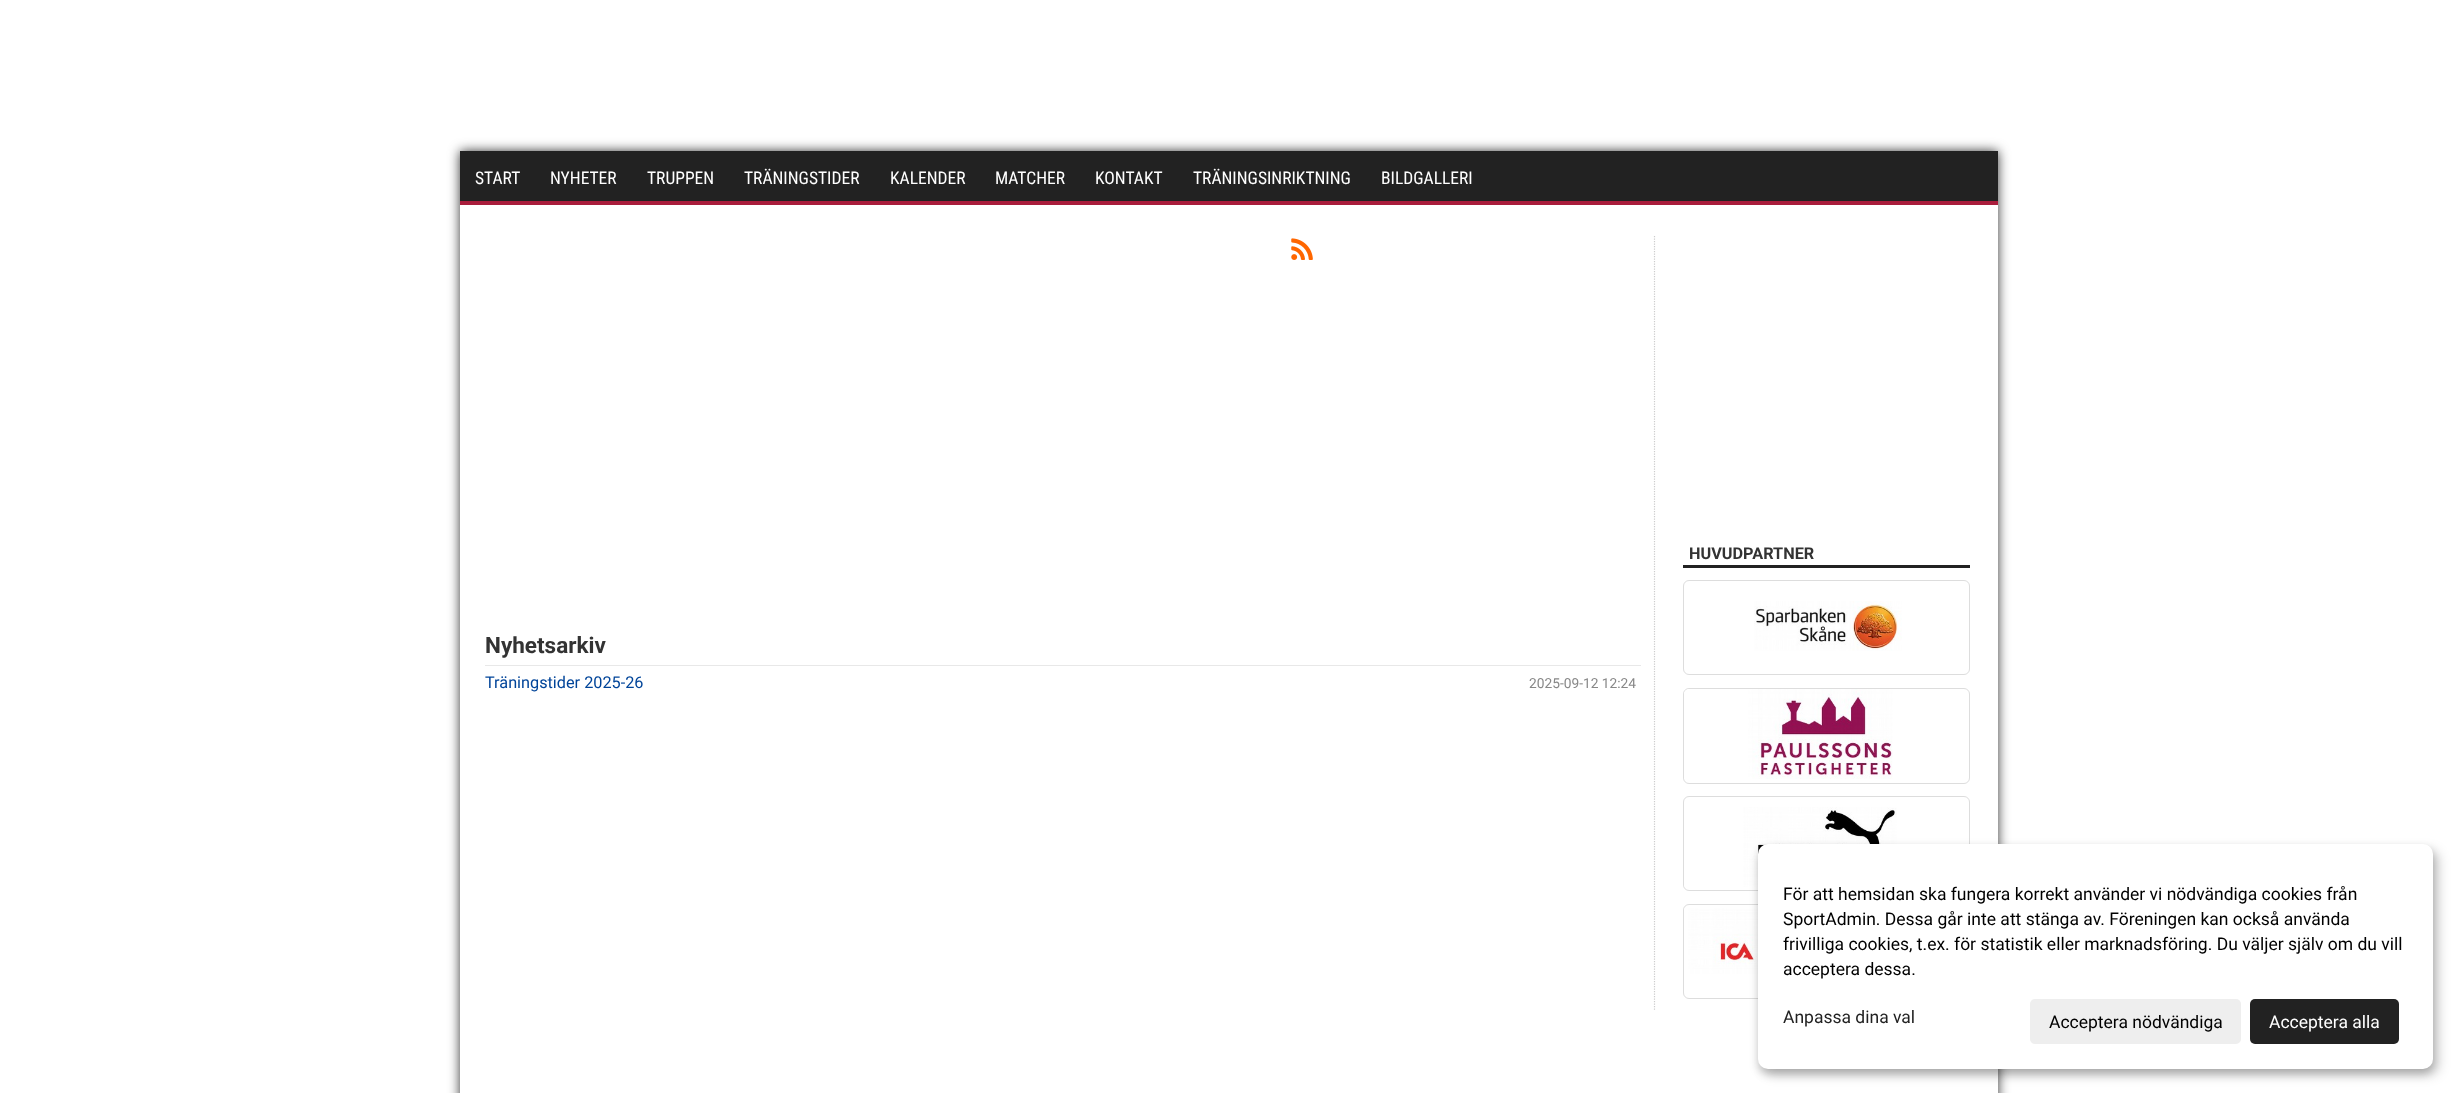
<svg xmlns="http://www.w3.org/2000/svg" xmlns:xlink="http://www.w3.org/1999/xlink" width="2457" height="1093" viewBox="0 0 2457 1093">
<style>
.cls-1{font:17.5px Roboto Condensed;fill:#ffffff}
.cls-2{font:bold 16.25px Roboto;fill:#333333}
.cls-3{font:bold 22.5px Roboto;fill:#333333}
.cls-4{font:16.25px Roboto;fill:#004499}
.cls-5{font:13.75px Roboto;fill:#888888}
.cls-6{font:17.5px Roboto;fill:#000000}
.cls-7{font:17.5px Roboto;fill:#222222}
.cls-8{font:17.5px Roboto;fill:#ffffff}
</style>
<rect width="100%" height="100%" fill="#ffffff"/>
<rect fill="#333333" filter="blur(6px)" x="460" y="151" width="1538" height="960"/>
<rect fill="#ffffff" x="460" y="205" width="1538" height="888"/>
<rect fill="#222222" x="460" y="151" width="1538" height="50"/>
<rect fill="#a91d3c" x="460" y="201" width="1538" height="4"/>
<path fill="none" stroke="#cccccc" stroke-width="1.2" stroke-dasharray="1.25 1.25" d="M1654.5 236V1011"/>
<rect fill="#222222" x="1683" y="565" width="287" height="3"/>
<rect fill="none" stroke="#dddddd" x="1683.5" y="580.5" width="286" height="94" rx="5.5"/>
<image xlink:href="image0.png" x="1754" y="601" width="148" height="50"/>
<rect fill="none" stroke="#dddddd" x="1683.5" y="688.5" width="286" height="95" rx="5.5"/>
<image xlink:href="image1.png" x="1684" y="689" width="209" height="90"/>
<rect fill="none" stroke="#dddddd" x="1683.5" y="796.5" width="286" height="94" rx="5.5"/>
<image xlink:href="image2.png" x="1684" y="807" width="213" height="80"/>
<rect fill="none" stroke="#dddddd" x="1683.5" y="904.5" width="286" height="94" rx="5.5"/>
<image xlink:href="image3.png" x="1684" y="908" width="74" height="66"/>
<image xlink:href="image4.png" x="1291" y="238" width="22" height="22"/>
<rect fill="#e8e8e8" x="485" y="665" width="1156" height="1"/>
<rect fill="#000000" fill-opacity="0.19" filter="blur(6px)" x="1764" y="850" width="675" height="225" rx="10"/>
<rect fill="#000000" fill-opacity="0.2" filter="blur(4px)" x="1758" y="849" width="675" height="225" rx="10"/>
<rect fill="#ffffff" x="1758" y="844" width="675" height="225" rx="10"/>
<rect fill="#eeeeee" x="2030" y="999" width="211" height="45" rx="5"/>
<rect fill="#222222" x="2250" y="999" width="149" height="45" rx="5"/>
<text class="cls-1" x="475" y="184">START</text>
<text class="cls-1" x="550" y="184">NYHETER</text>
<text class="cls-1" x="647" y="184">TRUPPEN</text>
<text class="cls-1" x="744" y="184">TRÄNINGSTIDER</text>
<text class="cls-1" x="890" y="184">KALENDER</text>
<text class="cls-1" x="995" y="184">MATCHER</text>
<text class="cls-1" x="1095" y="184">KONTAKT</text>
<text class="cls-1" x="1193" y="184">TRÄNINGSINRIKTNING</text>
<text class="cls-1" x="1381" y="184">BILDGALLERI</text>
<text class="cls-2" x="1689" y="559">HUVUDPARTNER</text>
<text class="cls-3" x="485" y="653">Nyhetsarkiv</text>
<text class="cls-4" x="485" y="688">Träningstider 2025-26</text>
<text class="cls-5" x="1529" y="688">2025-09-12 12:24</text>
<text class="cls-6"><tspan x="1783" y="900">För att hemsidan ska fungera korrekt använder vi nödvändiga cookies från</tspan><tspan x="1783" y="925">SportAdmin. Dessa går inte att stänga av. Föreningen kan också använda</tspan><tspan x="1783" y="950">frivilliga cookies, t.ex. för statistik eller marknadsföring. Du väljer själv om du vill</tspan><tspan x="1783" y="975">acceptera dessa.</tspan></text>
<text class="cls-7" x="1783" y="1023">Anpassa dina val</text>
<text class="cls-6" x="2049" y="1028">Acceptera nödvändiga</text>
<text class="cls-8" x="2269" y="1028">Acceptera alla</text>
</svg>
